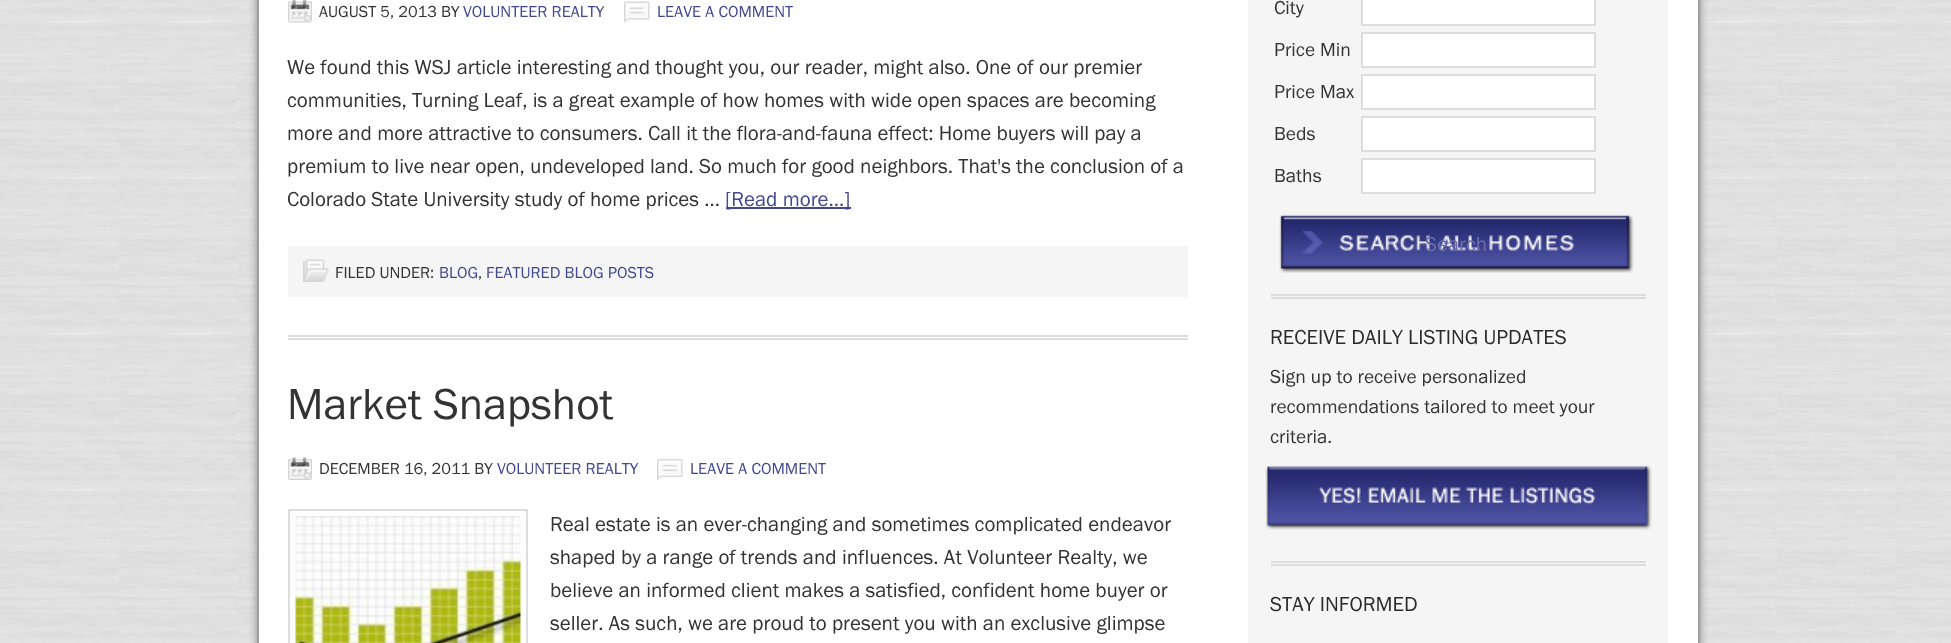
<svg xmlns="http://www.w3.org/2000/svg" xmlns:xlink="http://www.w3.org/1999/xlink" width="1951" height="643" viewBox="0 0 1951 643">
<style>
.cls-1{font:16.5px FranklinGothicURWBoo;fill:#333333}
.cls-2{font:16.5px FranklinGothicURWBoo;fill:#424890}
.cls-3{font:21px FranklinGothicURWBoo;fill:#333333}
.cls-4{font:21px FranklinGothicURWBoo;fill:#424890}
.cls-5{font:45px FranklinGothicURWBoo;fill:#333333}
.cls-6{font:19.5px FranklinGothicURWBoo;fill:#333333}
.cls-7{font:21px FranklinGothicURWBoo;fill:#6a6da7}
.cls-8{font:21px FranklinGothicURWBoo;fill:#2b2b2b}
</style>
<rect width="100%" height="100%" fill="#ffffff"/>
<image xlink:href="image0.png" x="0" y="0" width="1951" height="643"/>
<rect fill="#888888" filter="blur(4px)" x="257" y="-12" width="1443" height="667"/>
<rect fill="#ffffff" x="259" y="0" width="1439" height="643"/>
<rect fill="#9e9e9e" x="1698" y="0" width="2" height="643"/>
<rect fill="#9e9e9e" x="257" y="0" width="2" height="643"/>
<rect fill="#dddddd" x="288" y="335" width="900" height="2"/>
<rect fill="#dddddd" x="288" y="338" width="900" height="2"/>
<image xlink:href="image1.png" x="288" y="0" width="24" height="23"/>
<image xlink:href="image2.png" x="624" y="1" width="26" height="22"/>
<rect fill="#424890" x="726" y="207" width="125" height="2"/>
<rect fill="#f5f5f5" x="288" y="246" width="900" height="51"/>
<image xlink:href="image3.png" x="303" y="259" width="26" height="23"/>
<image xlink:href="image4.png" x="288" y="457" width="24" height="23"/>
<image xlink:href="image5.png" x="657" y="458" width="26" height="22"/>
<rect fill="none" stroke="#dddddd" stroke-width="2" x="289" y="510" width="238" height="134"/>
<image xlink:href="image6.png" x="295" y="516" width="226" height="127"/>
<rect fill="#f5f5f5" x="1248" y="0" width="420" height="643"/>
<rect fill="#dddddd" x="1271" y="294" width="375" height="2"/>
<rect fill="#dddddd" x="1271" y="297" width="375" height="2"/>
<rect fill="#ffffff" stroke="#dddddd" stroke-width="2" x="1362" y="-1" width="233" height="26"/>
<rect fill="#ffffff" stroke="#dddddd" stroke-width="2" x="1362" y="33" width="233" height="34"/>
<rect fill="#ffffff" stroke="#dddddd" stroke-width="2" x="1362" y="75" width="233" height="34"/>
<rect fill="#ffffff" stroke="#dddddd" stroke-width="2" x="1362" y="117" width="233" height="34"/>
<rect fill="#ffffff" stroke="#dddddd" stroke-width="2" x="1362" y="159" width="233" height="34"/>
<image xlink:href="image7.png" x="1279" y="214" width="355" height="59"/>
<rect fill="#dddddd" x="1271" y="561" width="375" height="2"/>
<rect fill="#dddddd" x="1271" y="564" width="375" height="2"/>
<image xlink:href="image8.png" x="1265" y="465" width="387" height="65"/>
<text class="cls-1" x="319" y="17">AUGUST 5, 2013 BY</text>
<text class="cls-2" x="463" y="17">VOLUNTEER REALTY</text>
<text class="cls-2" x="657" y="17">LEAVE A COMMENT</text>
<text class="cls-3"><tspan x="287" y="74">We found this WSJ article interesting and thought you, our reader, might also. One of our premier</tspan><tspan x="287" y="107">communities, Turning Leaf, is a great example of how homes with wide open spaces are becoming</tspan><tspan x="287" y="140">more and more attractive to consumers. Call it the flora-and-fauna effect: Home buyers will pay a</tspan><tspan x="287" y="173">premium to live near open, undeveloped land. So much for good neighbors. That's the conclusion of a</tspan><tspan x="287" y="206">Colorado State University study of home prices …</tspan></text>
<text class="cls-4" x="725" y="206">[Read more...]</text>
<text class="cls-1" x="335" y="278">FILED UNDER:</text>
<text class="cls-2" x="439" y="278">BLOG</text>
<text class="cls-1" x="478" y="278">,</text>
<text class="cls-2" x="486" y="278">FEATURED BLOG POSTS</text>
<text class="cls-5" x="287" y="419">Market Snapshot</text>
<text class="cls-1" x="319" y="474">DECEMBER 16, 2011 BY</text>
<text class="cls-2" x="497" y="474">VOLUNTEER REALTY</text>
<text class="cls-2" x="690" y="474">LEAVE A COMMENT</text>
<text class="cls-3"><tspan x="550" y="531">Real estate is an ever-changing and sometimes complicated endeavor</tspan><tspan x="550" y="564">shaped by a range of trends and influences. At Volunteer Realty, we</tspan><tspan x="550" y="597">believe an informed client makes a satisfied, confident home buyer or</tspan><tspan x="550" y="630">seller. As such, we are proud to present you with an exclusive glimpse</tspan></text>
<text class="cls-6" x="1274" y="14">City</text>
<text class="cls-6" x="1274" y="56">Price Min</text>
<text class="cls-6" x="1274" y="98">Price Max</text>
<text class="cls-6" x="1274" y="140">Beds</text>
<text class="cls-6" x="1274" y="182">Baths</text>
<text class="cls-7" x="1425" y="251">Search</text>
<text class="cls-8" x="1270" y="344">RECEIVE DAILY LISTING UPDATES</text>
<text class="cls-6"><tspan x="1270" y="383">Sign up to receive personalized</tspan><tspan x="1270" y="413">recommendations tailored to meet your</tspan><tspan x="1270" y="443">criteria.</tspan></text>
<text class="cls-8" x="1270" y="611">STAY INFORMED</text>
</svg>
